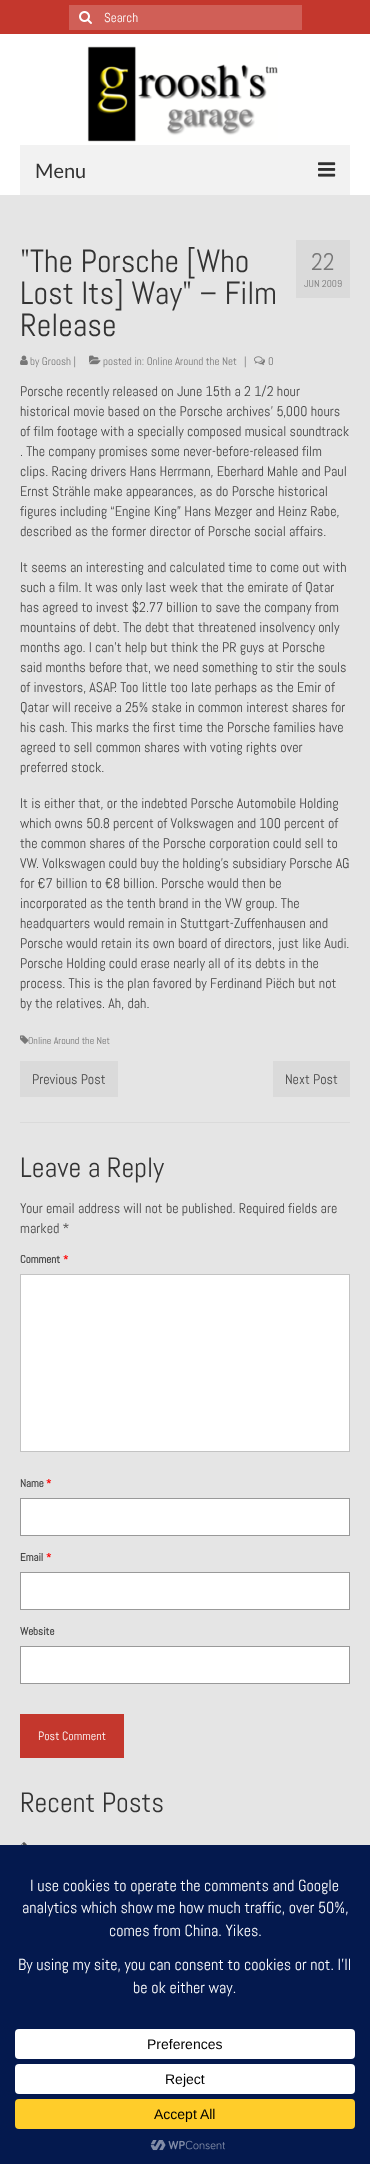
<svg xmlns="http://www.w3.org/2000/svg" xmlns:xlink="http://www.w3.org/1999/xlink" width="370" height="2164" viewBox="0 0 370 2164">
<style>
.cls-1{font:13px Abel;fill:#ffffff}
.cls-2{font:20px Lato;fill:#333333}
.cls-3{font:32px Abel;fill:#333333}
.cls-4{font:11px Abel;fill:#777777}
.cls-5{font:24px Abel;fill:#777777}
.cls-6{font:10px Abel;fill:#777777}
.cls-7{font:14px Abel;fill:#444444}
.cls-8{font:28px Abel;fill:#333333}
.cls-9{font:bold 11px Abel;fill:#444444}
.cls-10{font:bold 11px Abel;fill:#ff0000}
.cls-11{font:12px Abel;fill:#ffffff}
.cls-12{font:16px Abel;fill:#ffffff}
.cls-13{font:14px Liberation Sans;fill:#000000}
</style>
<rect width="100%" height="100%" fill="#ffffff"/>
<rect fill="#c4372d" x="0" y="0" width="370" height="34"/>
<rect fill="#d05f57" x="69" y="5" width="233" height="25"/>
<image xlink:href="image0.png" x="79" y="11" width="13" height="13"/>
<image xlink:href="image1.png" x="87" y="46" width="191" height="96"/>
<rect fill="#f2f2f2" x="20" y="145" width="330" height="50"/>
<image xlink:href="image2.png" x="318" y="162" width="18" height="15"/>
<rect fill="#e5e5e5" x="0" y="195" width="370" height="1650"/>
<image xlink:href="image3.png" x="20" y="355" width="8" height="10"/>
<image xlink:href="image4.png" x="89" y="355" width="12" height="10"/>
<image xlink:href="image5.png" x="254" y="356" width="11" height="9"/>
<rect fill="#dadada" x="296" y="240" width="54" height="58"/>
<rect fill="#dadada" x="20" y="1122" width="330" height="1"/>
<image xlink:href="image6.png" x="20" y="1035" width="9" height="9"/>
<rect fill="#dadada" x="20" y="1061" width="98" height="36"/>
<rect fill="#dadada" x="273" y="1061" width="77" height="36"/>
<rect fill="#ffffff" stroke="#c3c3c3" x="20.5" y="1274.5" width="329" height="177"/>
<rect fill="#ffffff" stroke="#999999" x="20.5" y="1498.5" width="329" height="37"/>
<rect fill="#ffffff" stroke="#999999" x="20.5" y="1572.5" width="329" height="37"/>
<rect fill="#ffffff" stroke="#999999" x="20.5" y="1646.5" width="329" height="37"/>
<rect fill="#c4372d" x="20" y="1714" width="104" height="44"/>
<image xlink:href="image7.png" x="20" y="1842" width="7" height="3"/>
<rect fill="#04194e" x="0" y="1845" width="370" height="319"/>
<rect fill="#ffffff" x="15" y="2029" width="340" height="30" rx="4"/>
<rect fill="#ffffff" x="15" y="2064" width="340" height="30" rx="4"/>
<rect fill="#ffcd2a" x="15" y="2099" width="340" height="30" rx="4"/>
<image xlink:href="image8.png" x="150" y="2140" width="75" height="11"/>
<text class="cls-1" x="104" y="22">Search</text>
<text class="cls-2" x="35" y="178">Menu</text>
<text class="cls-3"><tspan x="20" y="272">"The Porsche [Who</tspan><tspan x="20" y="304">Lost Its] Way" – Film</tspan><tspan x="20" y="336">Release</tspan></text>
<text class="cls-4" x="30" y="365">by Groosh |</text>
<text class="cls-4" x="103" y="365">posted in: Online Around the Net</text>
<text class="cls-4" x="244" y="365">|</text>
<text class="cls-4" x="268" y="365">0</text>
<text class="cls-5" x="311" y="270">22</text>
<text class="cls-6" x="304" y="287">JUN 2009</text>
<text class="cls-7"><tspan x="20" y="396">Porsche recently released on June 15th a 2 1/2 hour</tspan><tspan x="20" y="416">historical movie based on the Porsche archives’ 5,000 hours</tspan><tspan x="20" y="436">of film footage with a specially composed musical soundtrack</tspan><tspan x="20" y="456">. The company promises some never-before-released film</tspan><tspan x="20" y="476">clips. Racing drivers Hans Herrmann, Eberhard Mahle and Paul</tspan><tspan x="20" y="496">Ernst Strähle make appearances, as do Porsche historical</tspan><tspan x="20" y="516">figures including “Engine King” Hans Mezger and Heinz Rabe,</tspan><tspan x="20" y="536">described as the former director of Porsche social affairs.</tspan></text>
<text class="cls-7"><tspan x="20" y="572">It seems an interesting and calculated time to come out with</tspan><tspan x="20" y="592">such a film. It was only last week that the emirate of Qatar</tspan><tspan x="20" y="612">has agreed to invest $2.77 billion to save the company from</tspan><tspan x="20" y="632">mountains of debt. The debt that threatened insolvency only</tspan><tspan x="20" y="652">months ago. I can’t help but think the PR guys at Porsche</tspan><tspan x="20" y="672">said months before that, we need something to stir the souls</tspan><tspan x="20" y="692">of investors, ASAP. Too little too late perhaps as the Emir of</tspan><tspan x="20" y="712">Qatar will receive a 25% stake in common interest shares for</tspan><tspan x="20" y="732">his cash. This marks the first time the Porsche families have</tspan><tspan x="20" y="752">agreed to sell common shares with voting rights over</tspan><tspan x="20" y="772">preferred stock.</tspan></text>
<text class="cls-7"><tspan x="20" y="808">It is either that, or the indebted Porsche Automobile Holding</tspan><tspan x="20" y="828">which owns 50.8 percent of Volkswagen and 100 percent of</tspan><tspan x="20" y="848">the common shares of the Porsche corporation could sell to</tspan><tspan x="20" y="868">VW. Volkswagen could buy the holding’s subsidiary Porsche AG</tspan><tspan x="20" y="888">for €7 billion to €8 billion. Porsche would then be</tspan><tspan x="20" y="908">incorporated as the tenth brand in the VW group. The</tspan><tspan x="20" y="928">headquarters would remain in Stuttgart-Zuffenhausen and</tspan><tspan x="20" y="948">Porsche would retain its own board of directors, just like Audi.</tspan><tspan x="20" y="968">Porsche Holding could erase nearly all of its debts in the</tspan><tspan x="20" y="988">process. This is the plan favored by Ferdinand Piëch but not</tspan><tspan x="20" y="1008">by the relatives. Ah, dah.</tspan></text>
<text class="cls-6" x="28" y="1044">Online Around the Net</text>
<text class="cls-7" x="32" y="1084">Previous Post</text>
<text class="cls-7" x="285" y="1084">Next Post</text>
<text class="cls-8" x="20" y="1177">Leave a Reply</text>
<text class="cls-7"><tspan x="20" y="1213">Your email address will not be published. Required fields are</tspan><tspan x="20" y="1233">marked *</tspan></text>
<text class="cls-9" x="20" y="1263">Comment</text>
<text class="cls-10" x="63" y="1263">*</text>
<text class="cls-9" x="20" y="1487">Name</text>
<text class="cls-10" x="46" y="1487">*</text>
<text class="cls-9" x="20" y="1561">Email</text>
<text class="cls-10" x="46" y="1561">*</text>
<text class="cls-9" x="20" y="1635">Website</text>
<text class="cls-11" x="38" y="1740">Post Comment</text>
<text class="cls-8" x="20" y="1812">Recent Posts</text>
<text class="cls-12" x="30" y="1891">I use cookies to operate the comments and Google</text>
<text class="cls-12" x="22" y="1913">analytics which show me how much traffic, over 50%,</text>
<text class="cls-12" x="109" y="1936">comes from China. Yikes.</text>
<text class="cls-12" x="18" y="1970">By using my site, you can consent to cookies or not. I'll</text>
<text class="cls-12" x="133" y="1993">be ok either way.</text>
<text class="cls-13" x="147" y="2049">Preferences</text>
<text class="cls-13" x="165" y="2084">Reject</text>
<text class="cls-13" x="154" y="2119">Accept All</text>
</svg>
